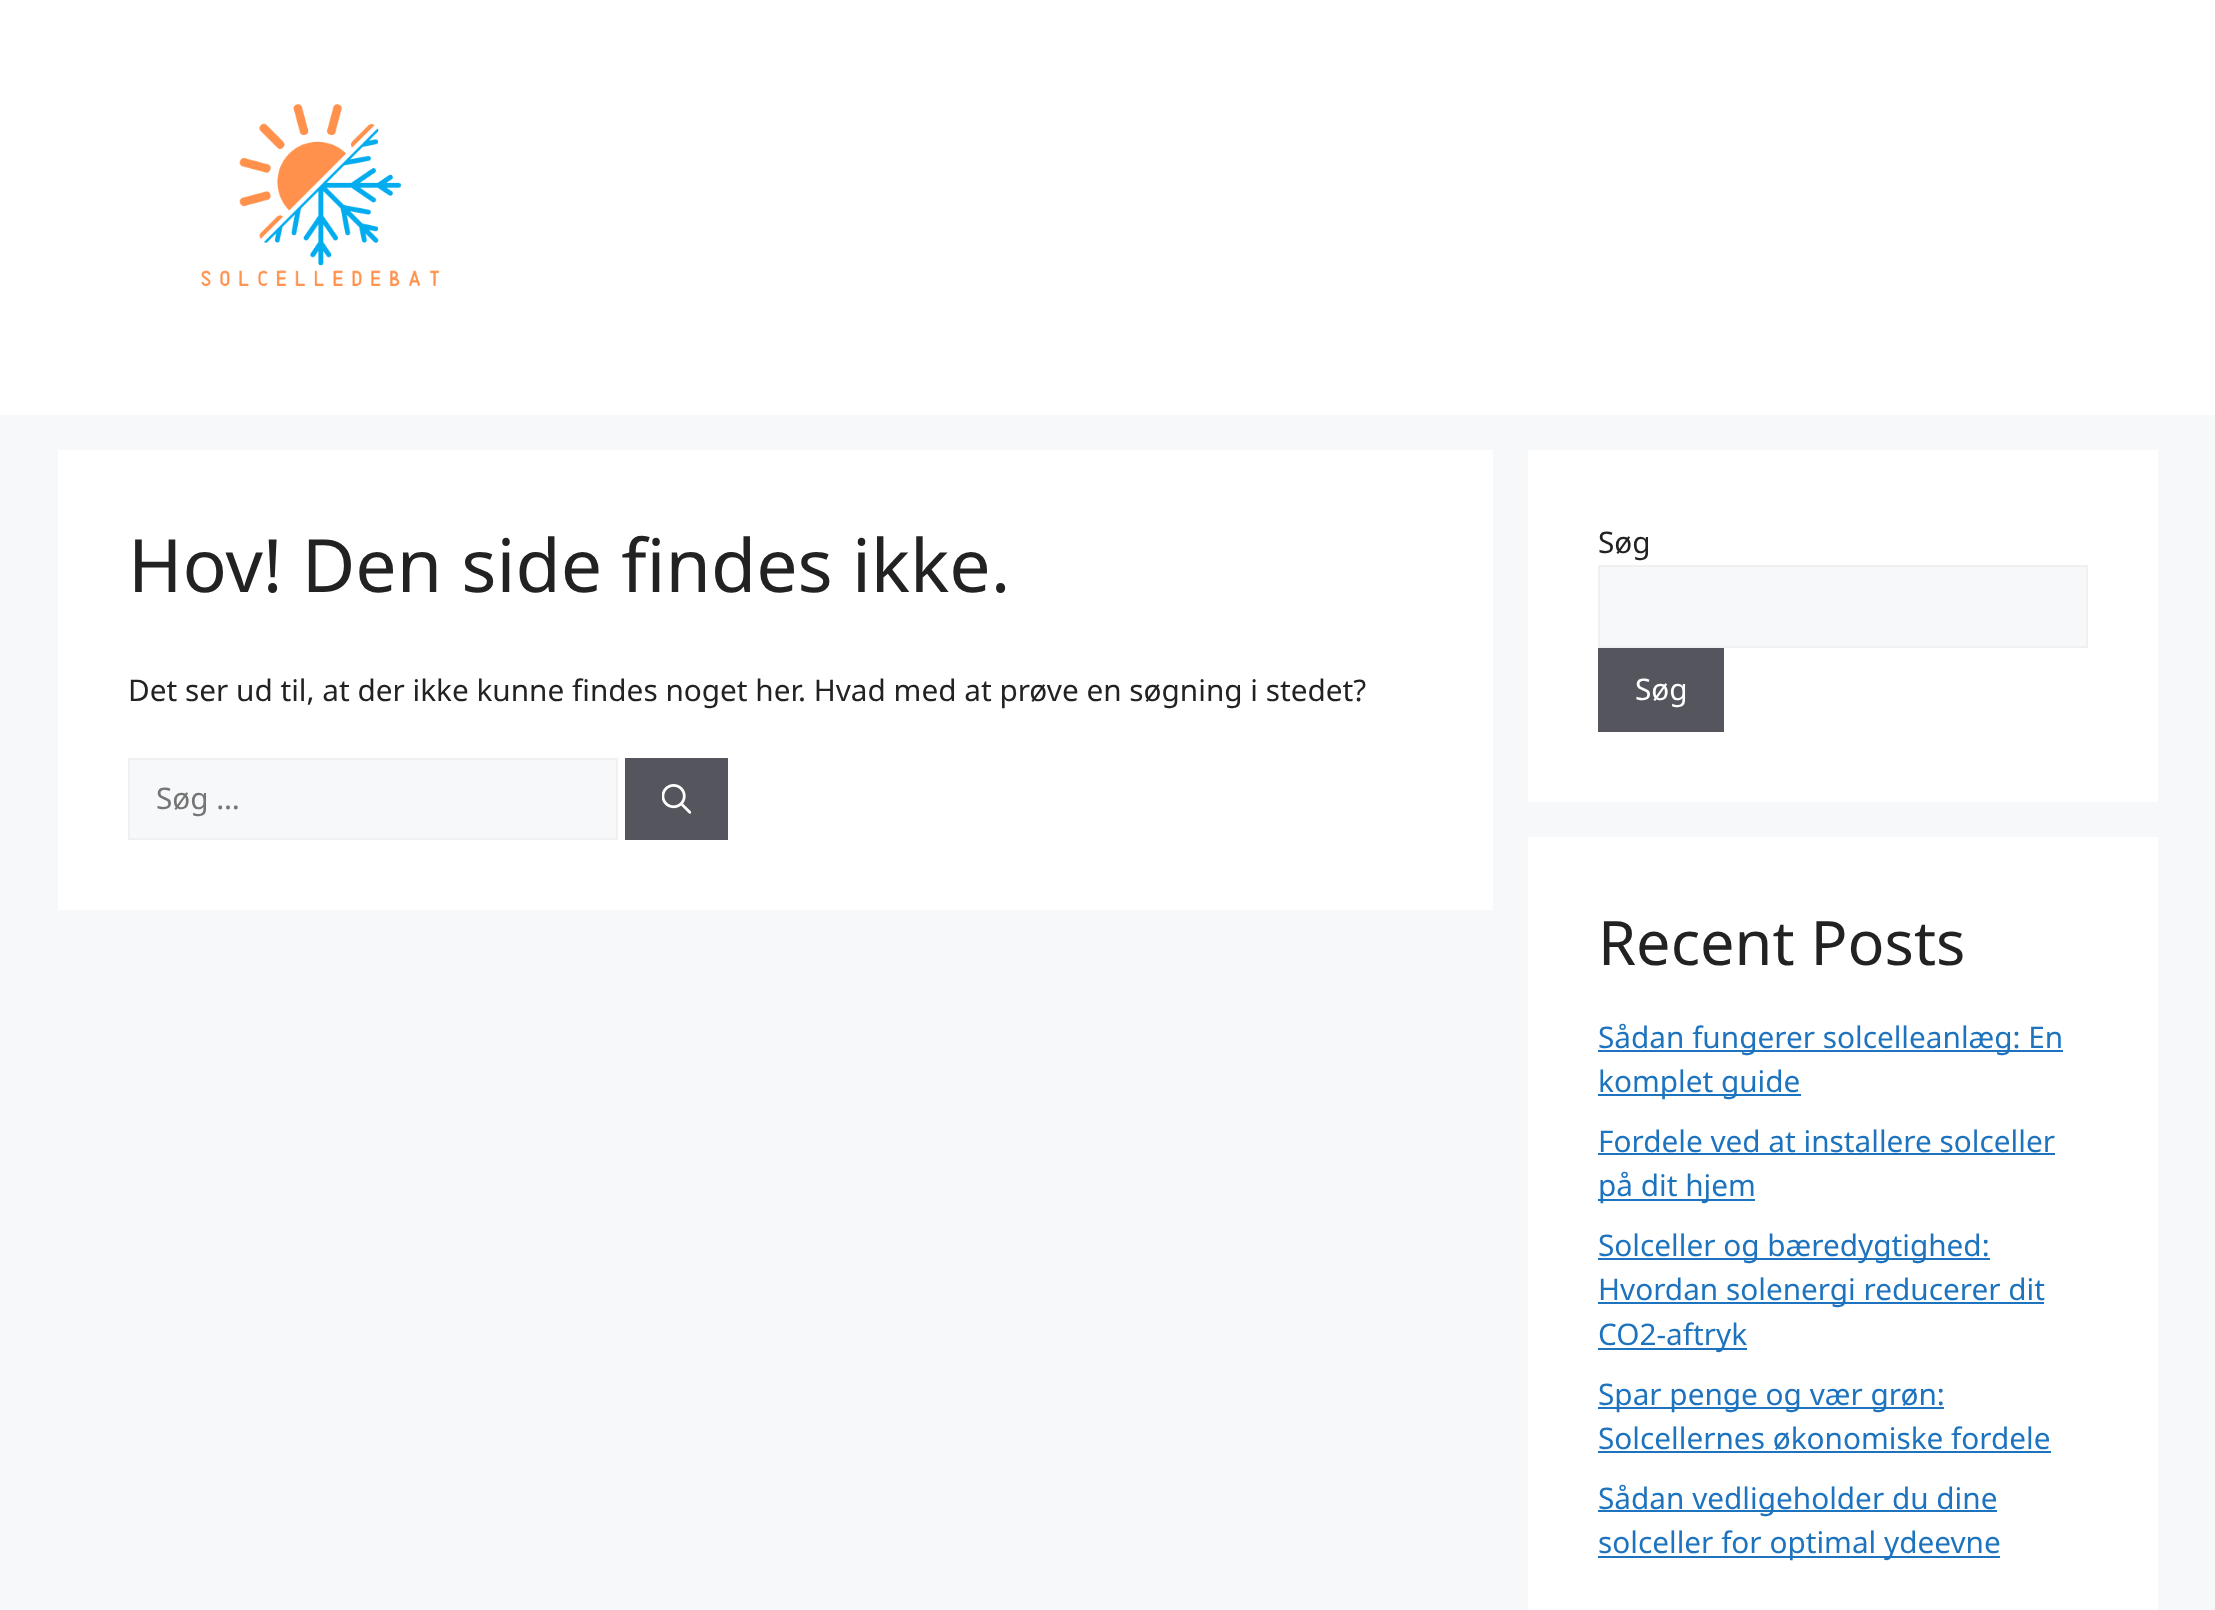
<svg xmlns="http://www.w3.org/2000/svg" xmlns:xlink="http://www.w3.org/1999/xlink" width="2215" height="1610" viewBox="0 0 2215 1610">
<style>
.cls-1{font:73.5px Noto Sans;fill:#222222}
.cls-2{font:29.75px Noto Sans;fill:#222222}
.cls-3{font:29.75px Noto Sans;fill:#757575}
.cls-4{font:29.75px Noto Sans;fill:#ffffff}
.cls-5{font:61.25px Noto Sans;fill:#222222}
.cls-6{font:29.75px Noto Sans;fill:#1e73be}
</style>
<rect width="100%" height="100%" fill="#f7f8f9"/>
<rect fill="#ffffff" x="0" y="0" width="2215" height="415"/>
<image xlink:href="image0.png" x="201" y="104" width="239" height="182"/>
<rect fill="#ffffff" x="58" y="450" width="1435" height="460"/>
<rect fill="#f7f8f9" stroke="#f0f0f0" stroke-width="2" x="129" y="759" width="488" height="80"/>
<rect fill="#55555e" x="625" y="758" width="103" height="82"/>
<image xlink:href="image1.png" x="662" y="784" width="29" height="30"/>
<rect fill="#ffffff" x="1528" y="450" width="630" height="352"/>
<rect fill="#f7f8f9" stroke="#f0f0f0" stroke-width="2" x="1599" y="566" width="488" height="81"/>
<rect fill="#55555e" x="1598" y="648" width="126" height="84"/>
<rect fill="#ffffff" x="1528" y="837" width="630" height="773"/>
<rect fill="#1e73be" x="1598" y="1050" width="465" height="2"/>
<rect fill="#1e73be" x="1598" y="1094" width="203" height="2"/>
<rect fill="#1e73be" x="1598" y="1153" width="457" height="2"/>
<rect fill="#1e73be" x="1598" y="1199" width="157" height="2"/>
<rect fill="#1e73be" x="1598" y="1258" width="392" height="2"/>
<rect fill="#1e73be" x="1598" y="1302" width="446" height="2"/>
<rect fill="#1e73be" x="1598" y="1348" width="149" height="2"/>
<rect fill="#1e73be" x="1598" y="1407" width="346" height="2"/>
<rect fill="#1e73be" x="1598" y="1451" width="453" height="2"/>
<rect fill="#1e73be" x="1598" y="1510" width="399" height="2"/>
<rect fill="#1e73be" x="1598" y="1556" width="402" height="2"/>
<text class="cls-1" x="128" y="592">Hov! Den side findes ikke.</text>
<text class="cls-2" x="128" y="701">Det ser ud til, at der ikke kunne findes noget her. Hvad med at prøve en søgning i stedet?</text>
<text class="cls-3" x="156" y="809">Søg …</text>
<text class="cls-2" x="1598" y="553">Søg</text>
<text class="cls-4" x="1635" y="700">Søg</text>
<text class="cls-5" x="1598" y="965">Recent Posts</text>
<text class="cls-6"><tspan x="1598" y="1048">Sådan fungerer solcelleanlæg: En</tspan><tspan x="1598" y="1092">komplet guide</tspan></text>
<text class="cls-6"><tspan x="1598" y="1152">Fordele ved at installere solceller</tspan><tspan x="1598" y="1196">på dit hjem</tspan></text>
<text class="cls-6"><tspan x="1598" y="1256">Solceller og bæredygtighed:</tspan><tspan x="1598" y="1300">Hvordan solenergi reducerer dit</tspan><tspan x="1598" y="1345">CO2-aftryk</tspan></text>
<text class="cls-6"><tspan x="1598" y="1405">Spar penge og vær grøn:</tspan><tspan x="1598" y="1449">Solcellernes økonomiske fordele</tspan></text>
<text class="cls-6"><tspan x="1598" y="1509">Sådan vedligeholder du dine</tspan><tspan x="1598" y="1553">solceller for optimal ydeevne</tspan></text>
</svg>
